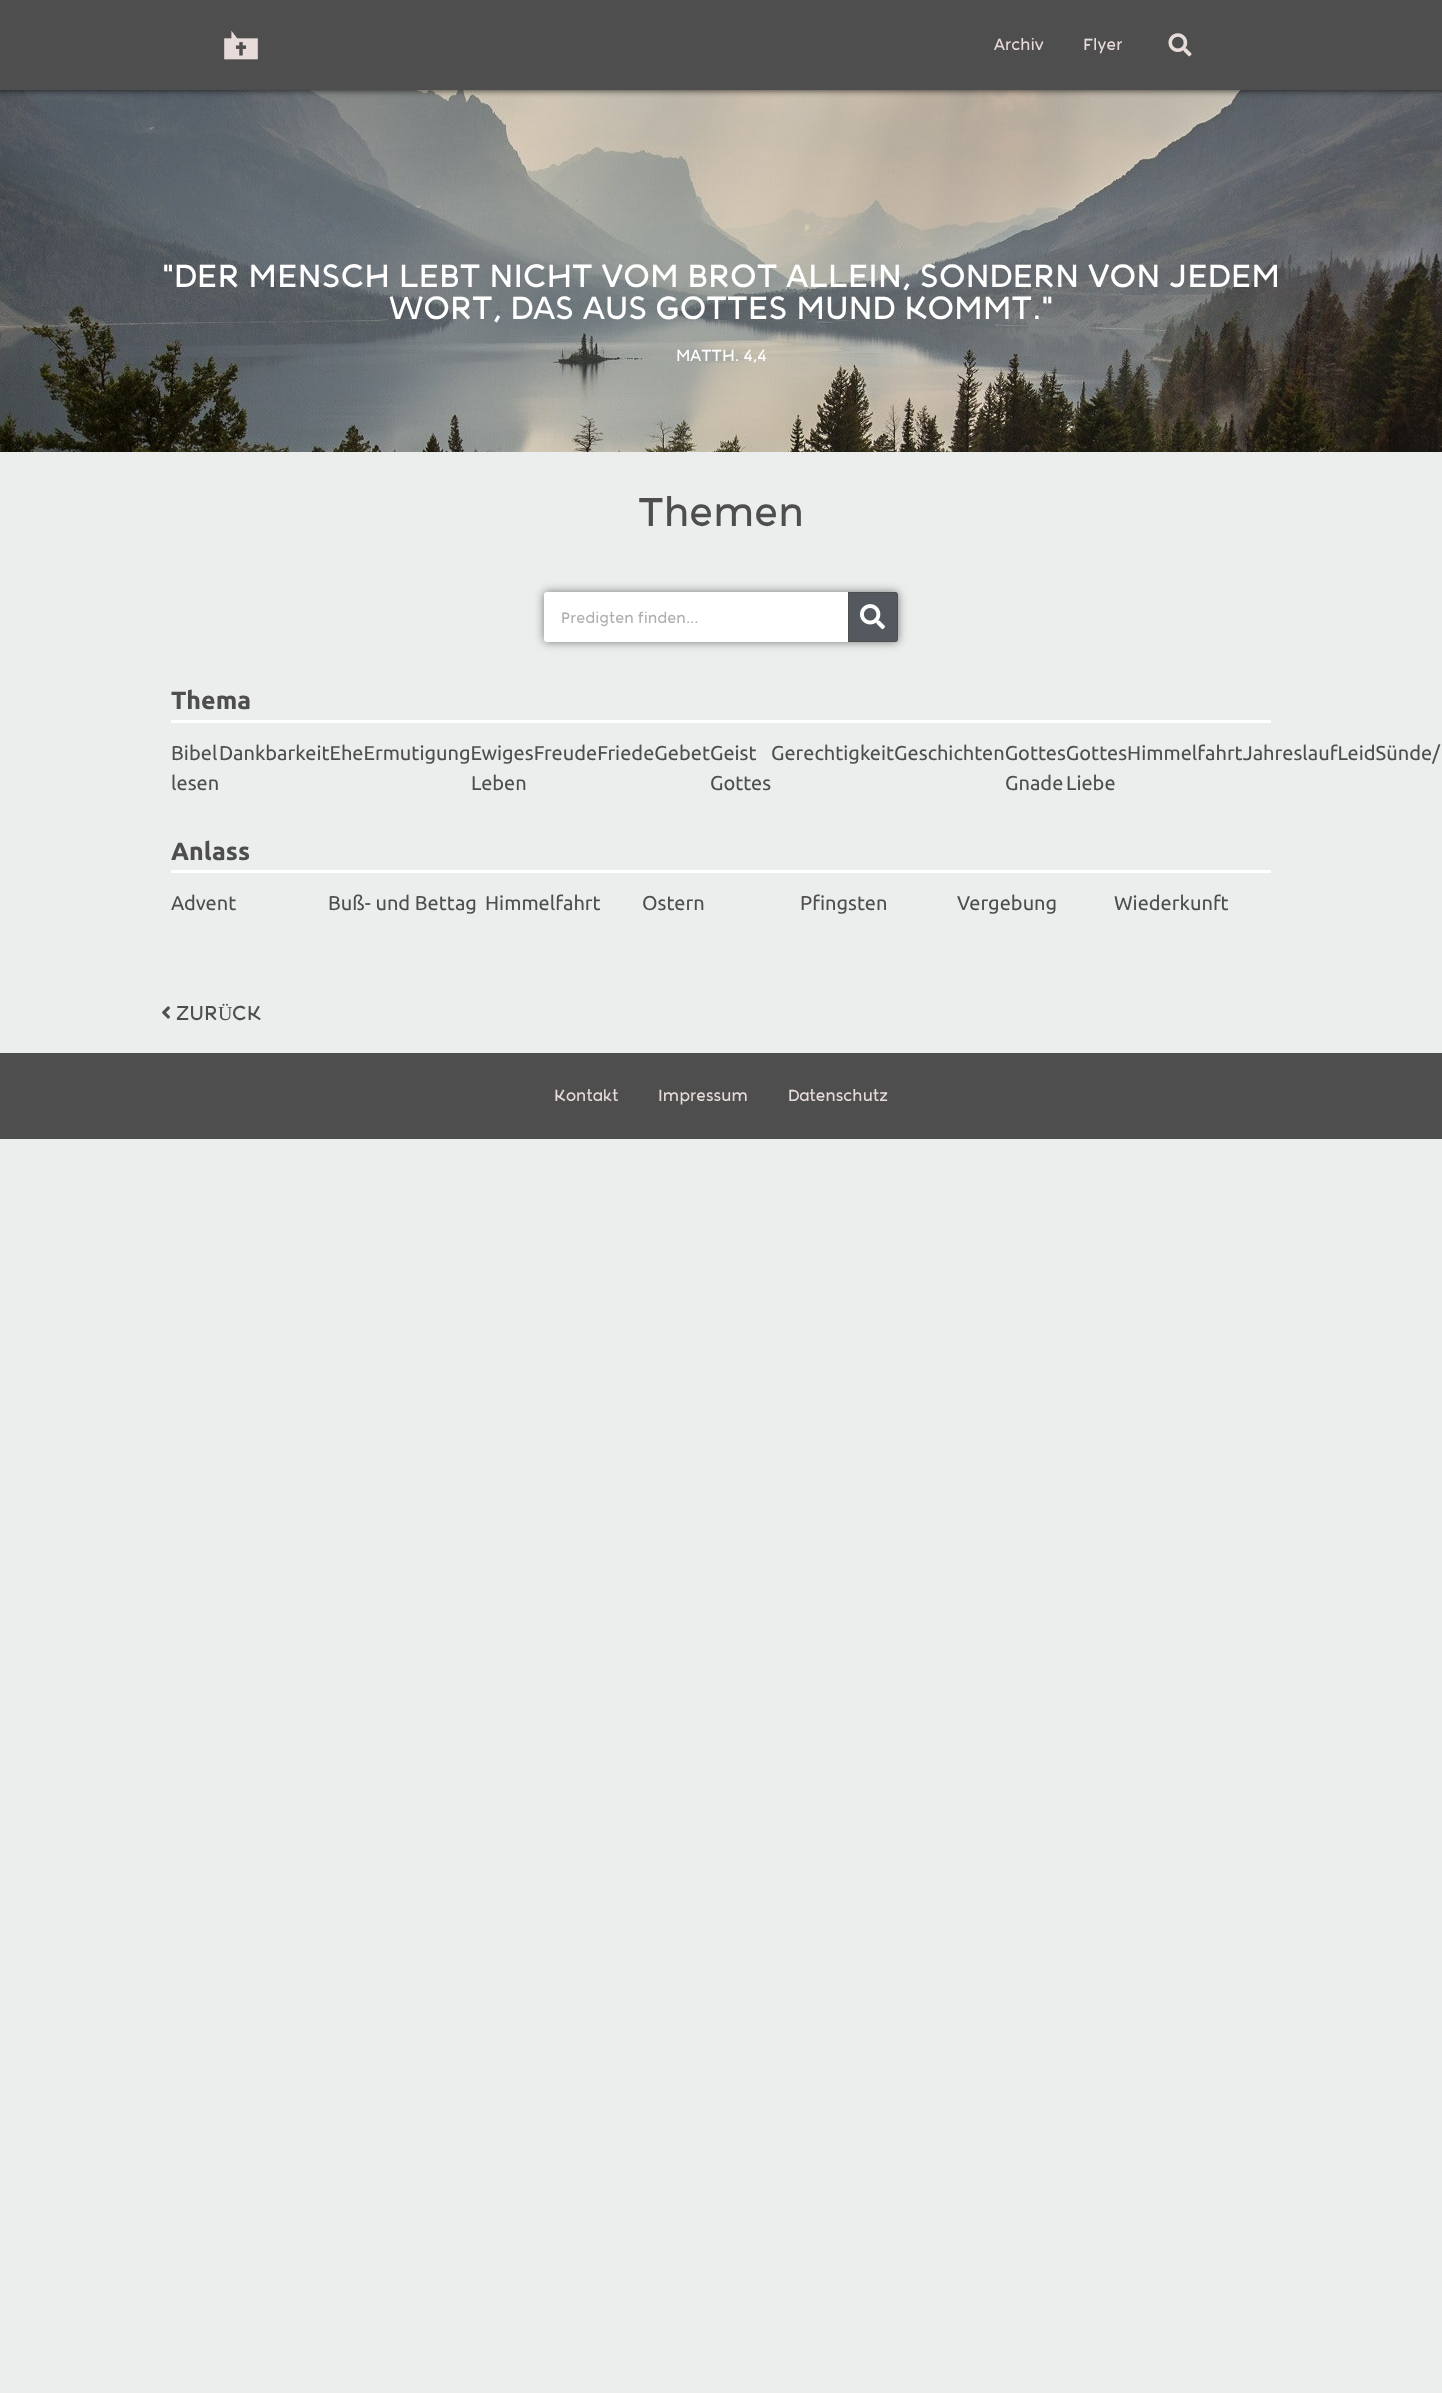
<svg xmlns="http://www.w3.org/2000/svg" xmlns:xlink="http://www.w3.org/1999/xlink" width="1442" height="2393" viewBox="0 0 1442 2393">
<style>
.cls-1{font:16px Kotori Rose;fill:#e8dcda}
.cls-2{font:32px Kotori Rose;fill:#ffffff}
.cls-3{font:16px Kotori Rose;fill:#ffffff}
.cls-4{font:40px Kotori Rose;fill:#4e4e4e}
.cls-5{font:15px Kotori Rose;fill:#afafaf}
.cls-6{font:bold 25px Ubuntu;fill:#4e4e4e}
.cls-7{font:20px Ubuntu;fill:#4e4e4e}
.cls-8{font:20px Kotori Rose;fill:#4e4e4e}
.cls-9{font:20px Liberation Serif;fill:#4e4e4e}
</style>
<rect width="100%" height="100%" fill="#eceeee"/>
<image xlink:href="image2.png" x="0" y="90" width="1442" height="362"/>
<rect fill="#000000" fill-opacity="0.79" filter="blur(3.5px)" x="-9" y="-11" width="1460" height="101"/>
<rect fill="#4e4e4e" x="0" y="0" width="1442" height="90"/>
<image xlink:href="image0.png" x="224" y="30" width="34" height="30"/>
<image xlink:href="image1.png" x="1168" y="33" width="24" height="24"/>
<rect fill="#000000" fill-opacity="0.5" filter="blur(5px)" x="544" y="592" width="354" height="50" rx="3"/>
<rect fill="#ffffff" x="544" y="592" width="354" height="50" rx="3"/>
<path fill="#54595f" d="M848 592H895C896.5 592 898 593.5 898 595V639C898 640.5 896.5 642 895 642H848Z"/>
<path fill="#4e4e4e" fill-rule="evenodd" d="M848 592V642H895C897 642 898 641 898 639V595C898 593 897 592 895 592ZM849 593V641H897V593Z"/>
<image xlink:href="image3.png" x="860" y="604" width="25" height="26"/>
<rect fill="#ffffff" x="171" y="720" width="1100" height="3"/>
<rect fill="#ffffff" x="171" y="870" width="1100" height="3"/>
<image xlink:href="image4.png" x="162" y="1006" width="8" height="13"/>
<rect fill="#4e4e4e" x="0" y="1053" width="1442" height="86"/>
<text class="cls-1" x="994" y="50">Archiv</text>
<text class="cls-1" x="1083" y="50">Flyer</text>
<text class="cls-2" x="162" y="287">"DER MENSCH LEBT NICHT VOM BROT ALLEIN, SONDERN VON JEDEM</text>
<text class="cls-2" x="389" y="319">WORT, DAS AUS GOTTES MUND KOMMT."</text>
<text class="cls-3" x="676" y="361">MATTH. 4,4</text>
<text class="cls-4" x="638" y="526">Themen</text>
<text class="cls-5" x="561" y="623">Predigten finden...</text>
<text class="cls-6" x="171" y="709">Thema</text>
<text class="cls-7"><tspan x="171" y="760">Bibel</tspan><tspan x="171" y="790">lesen</tspan></text>
<text class="cls-7" x="219" y="760">DankbarkeitEheErmutigungEwigesFreudeFriedeGebetGeist</text>
<text class="cls-7" x="771" y="760">GerechtigkeitGeschichtenGottesGottesHimmelfahrtJahreslaufLeidSünde/</text>
<text class="cls-7" x="471" y="790">Leben</text>
<text class="cls-7" x="710" y="790">Gottes</text>
<text class="cls-7" x="1005" y="790">Gnade</text>
<text class="cls-7" x="1066" y="790">Liebe</text>
<text class="cls-6" x="171" y="860">Anlass</text>
<text class="cls-7" x="171" y="910">Advent</text>
<text class="cls-7" x="328" y="910">Buß- und Bettag</text>
<text class="cls-7" x="485" y="910">Himmelfahrt</text>
<text class="cls-7" x="642" y="910">Ostern</text>
<text class="cls-7" x="800" y="910">Pfingsten</text>
<text class="cls-7" x="957" y="910">Vergebung</text>
<text class="cls-7" x="1114" y="910">Wiederkunft</text>
<text class="cls-8" x="176" y="1020">ZUR</text>
<text class="cls-9" x="218" y="1020">Ü</text>
<text class="cls-8" x="232" y="1020">CK</text>
<text class="cls-1" x="554" y="1101">Kontakt</text>
<text class="cls-1" x="658" y="1101">Impressum</text>
<text class="cls-1" x="788" y="1101">Datenschutz</text>
</svg>
